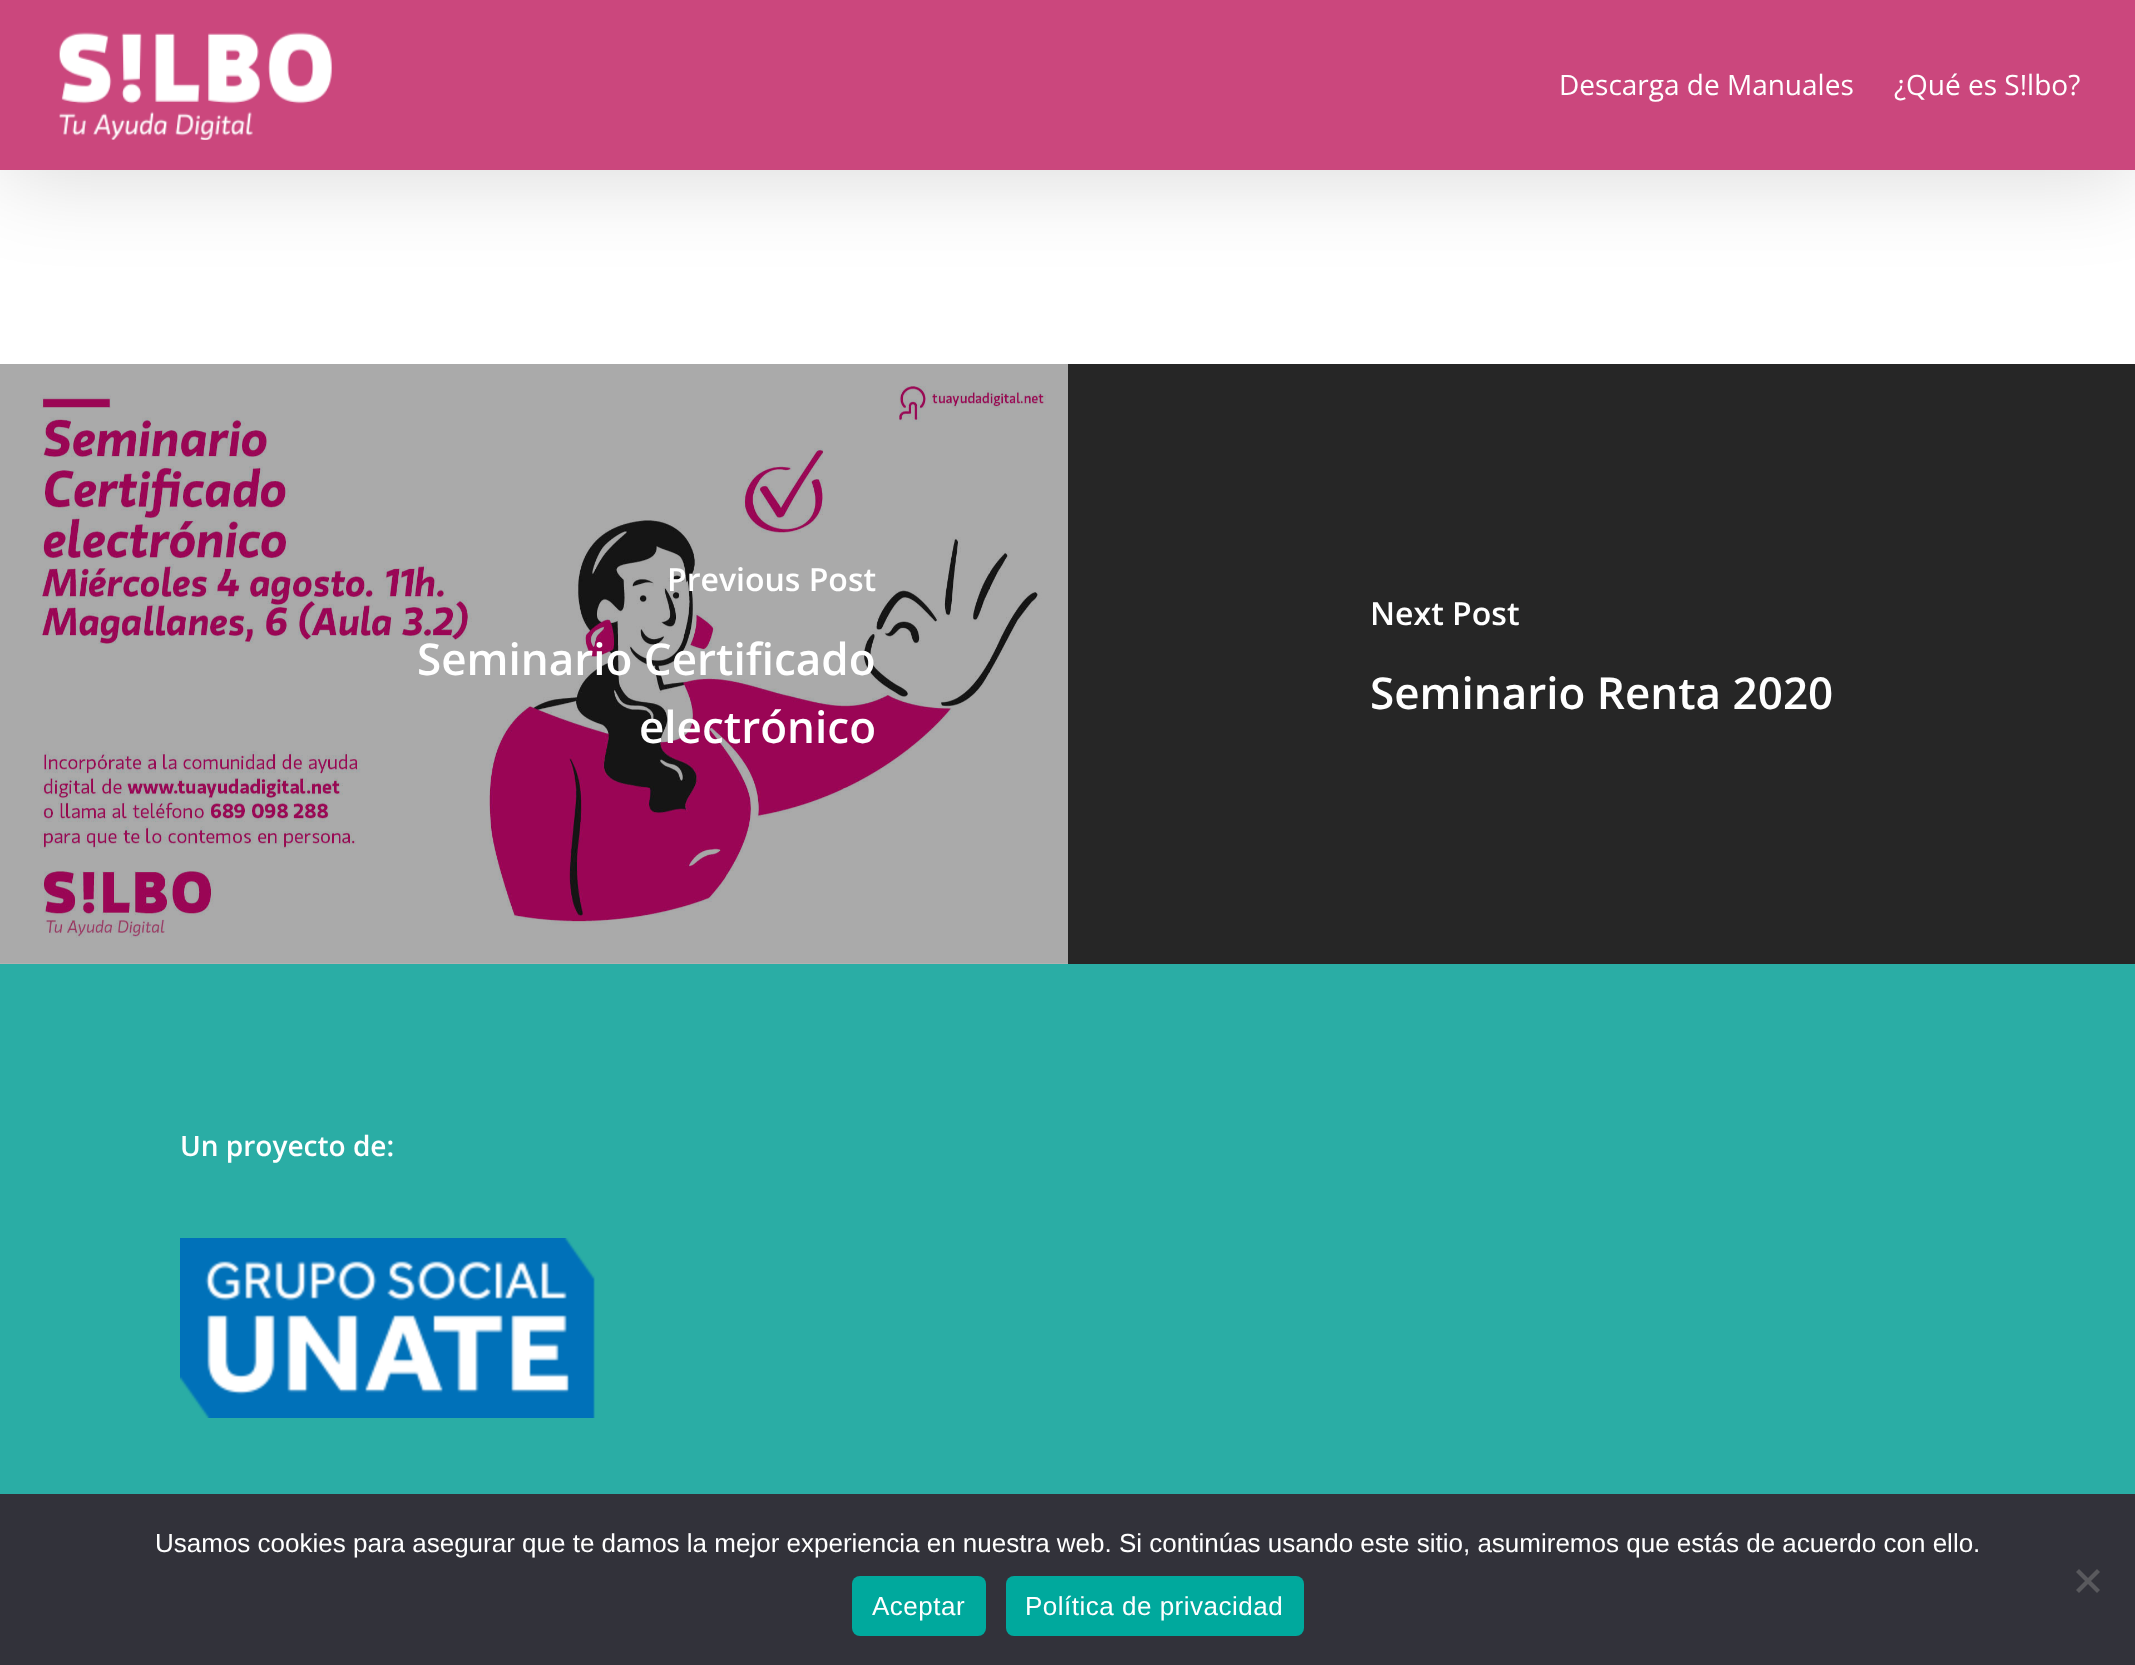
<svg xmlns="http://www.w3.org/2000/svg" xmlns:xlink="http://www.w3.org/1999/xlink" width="2135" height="1665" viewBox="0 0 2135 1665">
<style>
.cls-1{font:28px Open Sans;fill:#ffffff}
.cls-2{font:600 32px Open Sans;fill:#ffffff}
.cls-3{font:600 44px Open Sans;fill:#ffffff}
.cls-4{font:600 28px Open Sans;fill:#ffffff}
.cls-5{font:26px Liberation Sans;fill:#ffffff}
.cls-6{font:26px Liberation Sans;letter-spacing:0.5px;fill:#ffffff}
</style>
<rect width="100%" height="100%" fill="#ffffff"/>
<rect fill="#000000" fill-opacity="0.15" filter="blur(45px)" x="0" y="6" width="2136" height="170"/>
<rect fill="#cb477d" x="0" y="0" width="2135" height="170"/>
<image xlink:href="image0.png" x="59" y="32" width="273" height="108"/>
<image xlink:href="image1.png" x="0" y="364" width="1068" height="600"/>
<rect fill="#262626" x="1068" y="364" width="1067" height="600"/>
<rect fill="#2aada5" x="0" y="964" width="2135" height="530"/>
<image xlink:href="image2.png" x="180" y="1238" width="415" height="180"/>
<rect fill="#32323a" x="0" y="1494" width="2135" height="171"/>
<path fill="#59595d" d="M2097 1569L2100 1572L2079 1593L2076 1590Z"/>
<path fill="#59595d" d="M2076 1572L2079 1569L2100 1590L2097 1593Z"/>
<rect fill="#00a99d" x="852" y="1576" width="134" height="60" rx="8"/>
<rect fill="#00a99d" x="1006" y="1576" width="298" height="60" rx="8"/>
<text class="cls-1" x="1559" y="95">Descarga de Manuales</text>
<text class="cls-1" x="1894" y="95">¿Qué es S!lbo?</text>
<text class="cls-2" x="667" y="591">Previous Post</text>
<text class="cls-3" x="417" y="675">Seminario Certificado</text>
<text class="cls-3" x="639" y="743">electrónico</text>
<text class="cls-2" x="1370" y="625">Next Post</text>
<text class="cls-3" x="1370" y="709">Seminario Renta 2020</text>
<text class="cls-4" x="180" y="1156">Un proyecto de:</text>
<text class="cls-5" x="155" y="1552">Usamos cookies para asegurar que te damos la mejor experiencia en nuestra web. Si continúas usando este sitio, asumiremos que estás de acuerdo con ello.</text>
<text class="cls-6" x="872" y="1615">Aceptar</text>
<text class="cls-6" x="1025" y="1615">Política de privacidad</text>
</svg>
